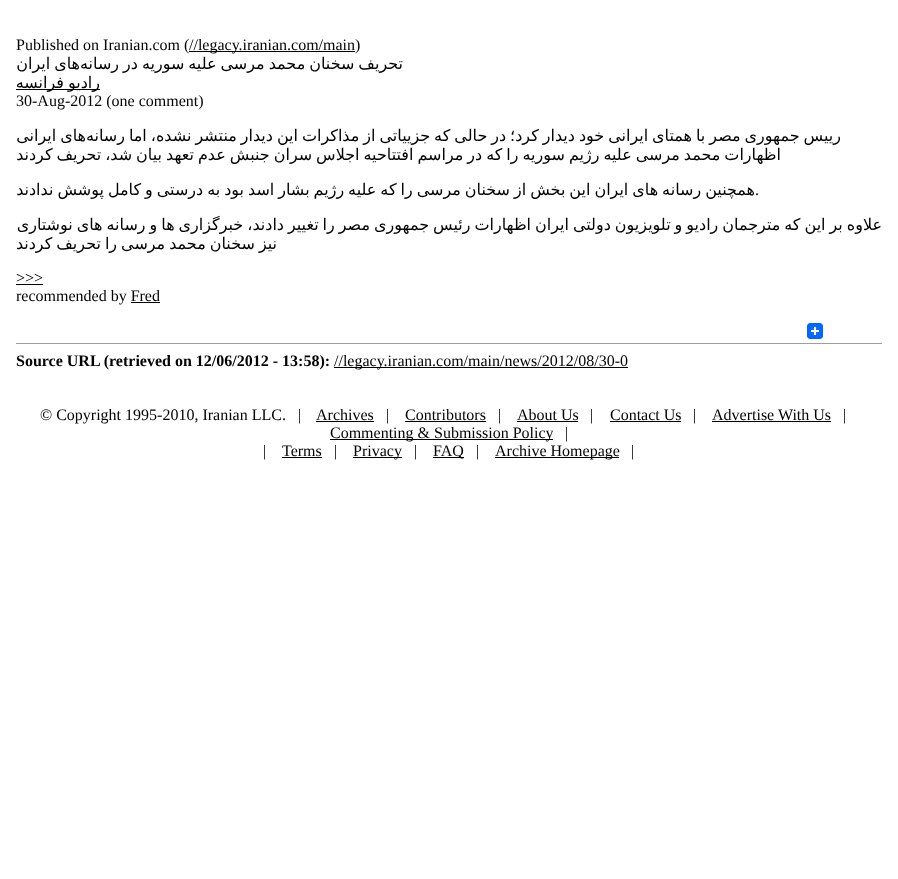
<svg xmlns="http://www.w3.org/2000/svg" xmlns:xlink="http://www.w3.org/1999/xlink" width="898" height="879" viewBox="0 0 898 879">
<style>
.cls-1{font:16px Liberation Serif;fill:#000000}
.cls-2{font:16px DejaVu Sans;direction:rtl;fill:#000000}
.cls-3{font:bold 16px Liberation Serif;fill:#000000}
</style>
<rect width="100%" height="100%" fill="#ffffff"/>
<rect fill="#000000" x="189" y="51" width="166" height="1"/>
<rect fill="#000000" x="16" y="89" width="84" height="1"/>
<rect fill="#000000" x="16" y="284" width="27" height="1"/>
<rect fill="#000000" x="131" y="302" width="29" height="1"/>
<image xlink:href="image0.png" x="807" y="323" width="16" height="16"/>
<rect fill="#9e9e9e" x="16" y="343" width="866" height="1"/>
<rect fill="#000000" x="334" y="367" width="294" height="1"/>
<rect fill="#000000" x="712" y="421" width="119" height="1"/>
<rect fill="#000000" x="610" y="421" width="71" height="1"/>
<rect fill="#000000" x="517" y="421" width="61" height="1"/>
<rect fill="#000000" x="405" y="421" width="81" height="1"/>
<rect fill="#000000" x="316" y="421" width="58" height="1"/>
<rect fill="#000000" x="330" y="439" width="223" height="1"/>
<rect fill="#000000" x="495" y="457" width="124" height="1"/>
<rect fill="#000000" x="433" y="457" width="31" height="1"/>
<rect fill="#000000" x="353" y="457" width="49" height="1"/>
<rect fill="#000000" x="282" y="457" width="40" height="1"/>
<text class="cls-1" x="189" y="50">//legacy.iranian.com/main)</text>
<text class="cls-1" x="16" y="50">Published on Iranian.com (</text>
<text class="cls-2" x="403" y="69" word-spacing="-1.1">تحریف سخنان محمد مرسی علیه سوریه در رسانه</text>
<text class="cls-2" x="80" y="69" word-spacing="-1.1">های ایران</text>
<text class="cls-2" x="100" y="88" word-spacing="-1.1">رادیو فرانسه</text>
<text class="cls-1" x="16" y="106">30-Aug-2012 (one comment)</text>
<text class="cls-2" x="841" y="141" word-spacing="-1.1">رییس جمهوری مصر با همتای ایرانی خود دیدار کرد؛ در حالی که جزییاتی از مذاکرات این دیدار منتشر نشده، اما رسانه</text>
<text class="cls-2" x="86" y="141" word-spacing="-1.1">های ایرانی</text>
<text class="cls-2" x="781" y="160" word-spacing="-1.1">اظهارات محمد مرسی علیه رژیم سوریه را که در مراسم افتتاحیه اجلاس سران جنبش عدم تعهد بیان شد، تحریف کردند</text>
<text class="cls-2" x="755" y="195" word-spacing="-1.1">همچنین رسانه های ایران این بخش از سخنان مرسی را که علیه رژیم بشار اسد بود به درستی و کامل پوشش ندادند</text>
<text class="cls-1" x="755" y="195">.</text>
<text class="cls-2" x="882" y="230" word-spacing="-1.1">علاوه بر این که مترجمان رادیو و تلویزیون دولتی ایران اظهارات رئیس جمهوری مصر را تغییر دادند، خبرگزاری ها و رسانه های نوشتاری</text>
<text class="cls-2" x="277" y="249" word-spacing="-1.1">نیز سخنان محمد مرسی را تحریف کردند</text>
<text class="cls-1"><tspan x="16" y="283">&gt;&gt;&gt;</tspan><tspan x="16" y="301">recommended by Fred</tspan></text>
<text class="cls-1" x="334" y="366">//legacy.iranian.com/main/news/2012/08/30-0</text>
<text class="cls-3" x="16" y="366">Source URL (retrieved on 12/06/2012 - 13:58):</text>
<text class="cls-1" x="843" y="420">|</text>
<text class="cls-1" x="712" y="420">Advertise With Us</text>
<text class="cls-1" x="693" y="420">|</text>
<text class="cls-1" x="610" y="420">Contact Us</text>
<text class="cls-1" x="590" y="420">|</text>
<text class="cls-1" x="517" y="420">About Us</text>
<text class="cls-1" x="498" y="420">|</text>
<text class="cls-1" x="405" y="420">Contributors</text>
<text class="cls-1" x="386" y="420">|</text>
<text class="cls-1" x="316" y="420">Archives</text>
<text class="cls-1" x="298" y="420">|</text>
<text class="cls-1" x="40" y="420">© Copyright 1995-2010, Iranian LLC.</text>
<text class="cls-1" x="565" y="438">|</text>
<text class="cls-1" x="330" y="438">Commenting &amp; Submission Policy</text>
<text class="cls-1" x="631" y="456">|</text>
<text class="cls-1" x="495" y="456">Archive Homepage</text>
<text class="cls-1" x="476" y="456">|</text>
<text class="cls-1" x="433" y="456">FAQ</text>
<text class="cls-1" x="414" y="456">|</text>
<text class="cls-1" x="353" y="456">Privacy</text>
<text class="cls-1" x="334" y="456">|</text>
<text class="cls-1" x="282" y="456">Terms</text>
<text class="cls-1" x="263" y="456">|</text>
</svg>
